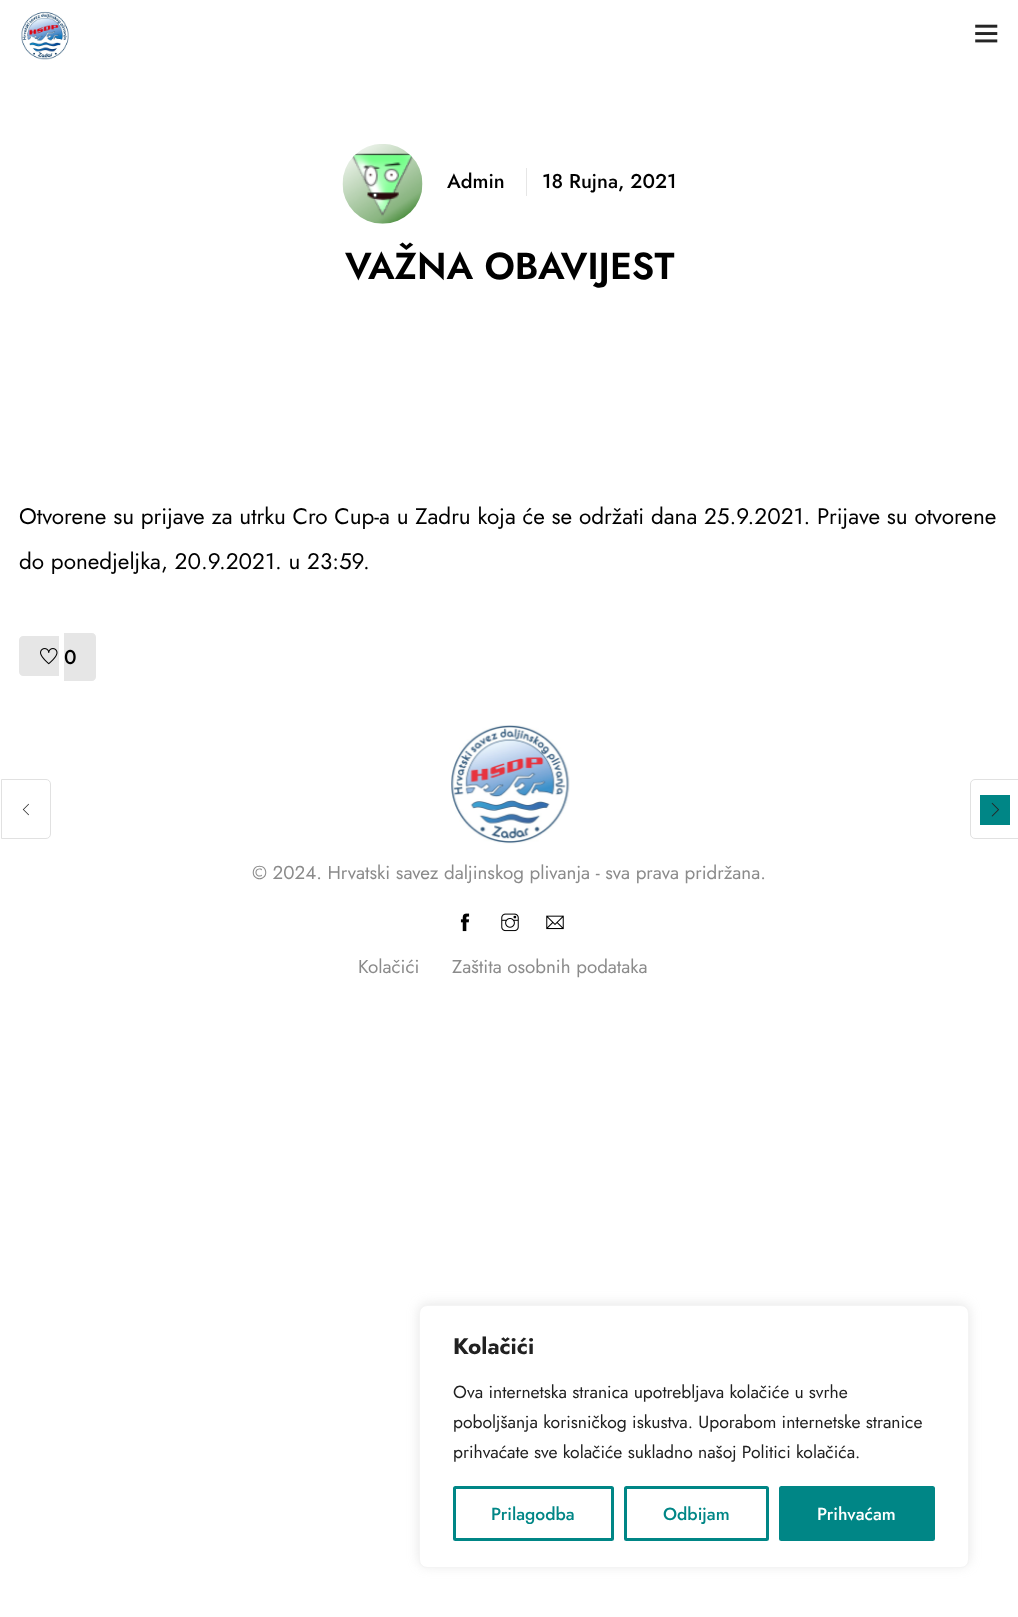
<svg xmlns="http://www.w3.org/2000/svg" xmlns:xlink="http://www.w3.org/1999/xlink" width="1018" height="1617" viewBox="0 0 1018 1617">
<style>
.cls-1{font:500 20px Jost;fill:#000000}
.cls-2{font:600 37.5px Jost;fill:#000000}
.cls-3{font:22.5px Jost;fill:#000000}
.cls-4{font:18.75px Jost;fill:#8b8b8b}
.cls-5{font:bold 22.5px Jost;fill:#212121}
.cls-6{font:17.5px Jost;fill:#212121}
.cls-7{font:500 17.5px Jost;fill:#008686}
.cls-8{font:500 17.5px Jost;fill:#ffffff}
</style>
<rect width="100%" height="100%" fill="#ffffff"/>
<image xlink:href="image0.png" x="21" y="11" width="48" height="49"/>
<image xlink:href="image1.png" x="975" y="24" width="23" height="19"/>
<image xlink:href="image2.png" x="342" y="144" width="81" height="80"/>
<rect fill="#e6e6e6" x="526" y="168" width="1" height="28"/>
<path fill="#e6e6e6" d="M23 636H59V676H23C21 676 19 674 19 672V640C19 638 21 636 23 636Z"/>
<path fill="#e6e6e6" d="M64 633H92C94 633 96 635 96 637V677C96 679 94 681 92 681H64Z"/>
<image xlink:href="image3.png" x="40" y="648" width="18" height="17"/>
<path fill="none" stroke="#e1e1e1" d="M1.5 779.5H46C48.5 779.5 50.5 781.5 50.5 784V834C50.5 836.5 48.5 838.5 46 838.5H1.5Z"/>
<image xlink:href="image4.png" x="22" y="803" width="7" height="13"/>
<path fill="none" stroke="#e1e1e1" d="M975 779.5H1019.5V838.5H975C972.5 838.5 970.5 836.5 970.5 834V784C970.5 781.5 972.5 779.5 975 779.5Z"/>
<rect fill="#008686" x="980" y="795" width="30" height="30"/>
<image xlink:href="image5.png" x="991" y="802" width="8" height="15"/>
<image xlink:href="image6.png" x="451" y="725" width="119" height="119"/>
<image xlink:href="image7.png" x="460" y="913" width="10" height="19"/>
<image xlink:href="image8.png" x="501" y="913" width="18" height="19"/>
<image xlink:href="image9.png" x="546" y="915" width="18" height="15"/>
<rect fill="#acabab" fill-opacity="0.3" filter="blur(6px)" x="419" y="1304" width="550" height="262" rx="8"/>
<rect fill="#ffffff" stroke="#f4f4f4" x="419.5" y="1305.5" width="549" height="262" rx="7.5"/>
<rect fill="none" stroke="#008686" stroke-width="3" x="454.5" y="1487.5" width="158" height="52" rx="1"/>
<rect fill="none" stroke="#008686" stroke-width="3" x="625.5" y="1487.5" width="142" height="52" rx="1"/>
<rect fill="#008686" stroke="#008686" stroke-width="3" x="780.5" y="1487.5" width="153" height="52" rx="1"/>
<text class="cls-1" x="447" y="188">Admin</text>
<text class="cls-1" x="542" y="188">18 Rujna, 2021</text>
<text class="cls-2" x="345" y="279">VAŽNA OBAVIJEST</text>
<text class="cls-3" x="19" y="524">Otvorene su prijave za utrku Cro Cup-a u Zadru koja će se održati dana 25.9.2021. Prijave su otvorene</text>
<text class="cls-3" x="19" y="569">do ponedjeljka, 20.9.2021. u 23:59.</text>
<text class="cls-1" x="64" y="664">0</text>
<text class="cls-4" x="252" y="879">© 2024. Hrvatski savez daljinskog plivanja - sva prava pridržana.</text>
<text class="cls-4" x="358" y="973">Kolačići</text>
<text class="cls-4" x="452" y="973">Zaštita osobnih podataka</text>
<text class="cls-5" x="453" y="1354">Kolačići</text>
<text class="cls-6"><tspan x="453" y="1398">Ova internetska stranica upotrebljava kolačiće u svrhe</tspan><tspan x="453" y="1428">poboljšanja korisničkog iskustva. Uporabom internetske stranice</tspan><tspan x="453" y="1458">prihvaćate sve kolačiće sukladno našoj Politici kolačića.</tspan></text>
<text class="cls-7" x="491" y="1520">Prilagodba</text>
<text class="cls-7" x="663" y="1520">Odbijam</text>
<text class="cls-8" x="817" y="1520">Prihvaćam</text>
</svg>
